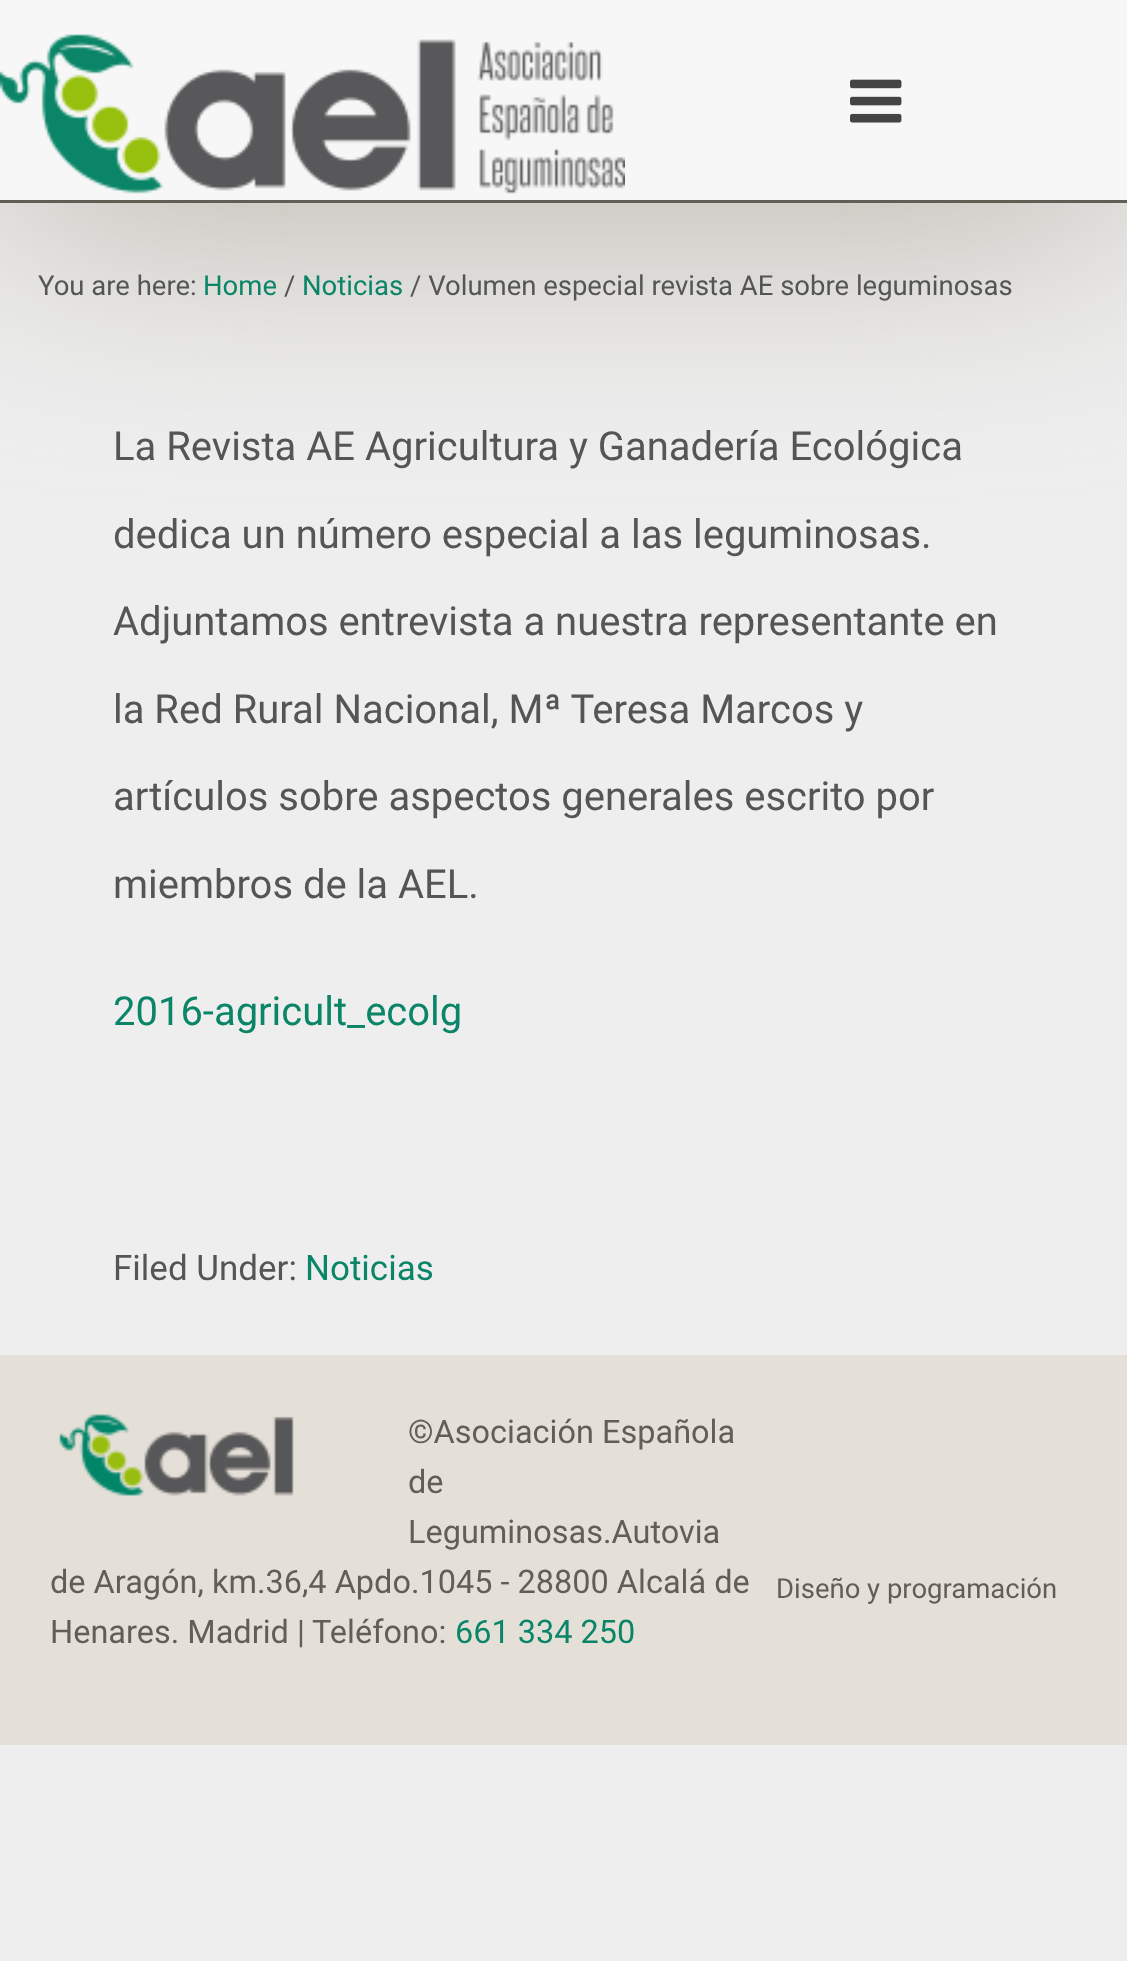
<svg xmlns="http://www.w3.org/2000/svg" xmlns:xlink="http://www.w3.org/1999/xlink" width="1127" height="1961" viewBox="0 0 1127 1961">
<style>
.cls-1{font:27.5px Roboto;fill:#555555}
.cls-2{font:27.5px Roboto;fill:#0b8568}
.cls-3{font:40px Roboto;fill:#555555}
.cls-4{font:40px Roboto;fill:#0b8568}
.cls-5{font:35px Roboto;fill:#555555}
.cls-6{font:35px Roboto;fill:#0b8568}
.cls-7{font:32.5px Roboto;fill:#615e56}
.cls-8{font:32.5px Roboto;fill:#0b8568}
.cls-9{font:27.5px Roboto;fill:#615e56}
</style>
<rect width="100%" height="100%" fill="#eeeeee"/>
<rect fill="#aea89a" filter="blur(125px)" x="0" y="0" width="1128" height="203"/>
<rect fill="#f7f7f7" x="0" y="0" width="1127" height="200"/>
<rect fill="#615e56" x="0" y="200" width="1127" height="3"/>
<image xlink:href="image0.png" x="0" y="34" width="625" height="160"/>
<image xlink:href="image1.png" x="850" y="79" width="52" height="44"/>
<rect fill="#e4dfd7" x="0" y="1355" width="1127" height="390"/>
<image xlink:href="image2.png" x="59" y="1414" width="235" height="82"/>
<text class="cls-1" x="38" y="295">You are here:</text>
<text class="cls-2" x="203" y="295">Home</text>
<text class="cls-1" x="284" y="295">/</text>
<text class="cls-2" x="302" y="295">Noticias</text>
<text class="cls-1" x="410" y="295">/ Volumen especial revista AE sobre leguminosas</text>
<text class="cls-3" x="113" y="460">La Revista AE Agricultura y Ganadería Ecológica</text>
<text class="cls-3" x="113" y="548">dedica un número especial a las leguminosas.</text>
<text class="cls-3" x="113" y="635">Adjuntamos entrevista a nuestra representante en</text>
<text class="cls-3" x="113" y="723">la Red Rural Nacional, Mª Teresa Marcos y</text>
<text class="cls-3" x="113" y="810">artículos sobre aspectos generales escrito por</text>
<text class="cls-3" x="113" y="898">miembros de la AEL.</text>
<text class="cls-4" x="113" y="1025">2016-agricult_ecolg</text>
<text class="cls-5" x="113" y="1280">Filed Under:</text>
<text class="cls-6" x="305" y="1280">Noticias</text>
<text class="cls-7"><tspan x="408" y="1443">©Asociación Española</tspan><tspan x="408" y="1493">de</tspan><tspan x="408" y="1543">Leguminosas.Autovia</tspan></text>
<text class="cls-7"><tspan x="50" y="1593">de Aragón, km.36,4 Apdo.1045 - 28800 Alcalá de</tspan><tspan x="50" y="1643">Henares. Madrid |</tspan></text>
<text class="cls-7" x="312" y="1643">Teléfono:</text>
<text class="cls-8" x="455" y="1643">661 334 250</text>
<text class="cls-9" x="776" y="1598">Diseño y programación</text>
</svg>
